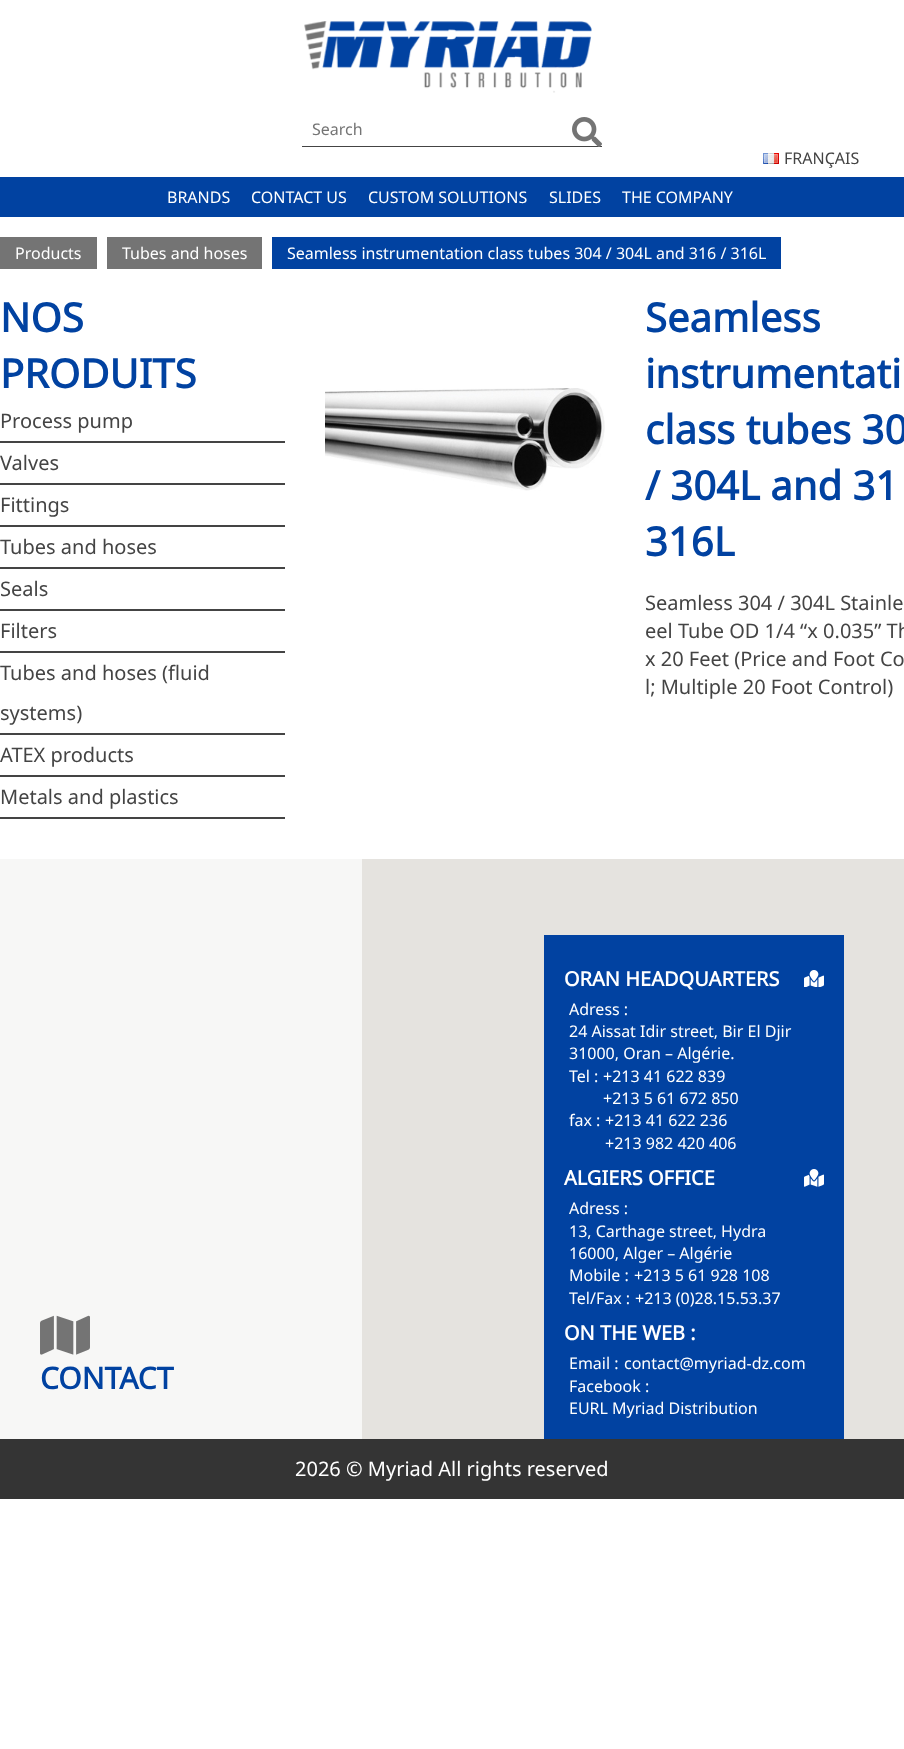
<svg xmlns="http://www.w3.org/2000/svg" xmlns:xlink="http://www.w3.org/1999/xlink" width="904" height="1749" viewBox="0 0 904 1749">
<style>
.cls-1{font:16px Noto Sans;fill:#757575}
.cls-2{font:16px Noto Sans;fill:#444444}
.cls-3{font:16px Noto Sans;fill:#ffffff}
.cls-4{font:bold 40px Noto Sans;fill:#0142a1}
.cls-5{font:20px Noto Sans;fill:#444444}
.cls-6{font:bold 30px Noto Sans;fill:#0142a1}
.cls-7{font:bold 20px Noto Sans;fill:#ffffff}
.cls-8{font:20px Noto Sans;fill:#ffffff}
</style>
<rect width="100%" height="100%" fill="#ffffff"/>
<image xlink:href="image0.png" x="304" y="21" width="288" height="72"/>
<rect fill="#444444" x="302" y="146" width="300" height="1"/>
<image xlink:href="image1.png" x="572" y="117" width="30" height="30"/>
<image xlink:href="image2.png" x="763" y="153" width="16" height="11"/>
<rect fill="#0142a1" x="0" y="177" width="904" height="40"/>
<rect fill="#747474" x="0" y="237" width="97" height="32"/>
<rect fill="#747474" x="107" y="237" width="155" height="32"/>
<rect fill="#0142a1" x="272" y="237" width="509" height="32"/>
<rect fill="#444444" x="0" y="441" width="285" height="2"/>
<rect fill="#444444" x="0" y="483" width="285" height="2"/>
<rect fill="#444444" x="0" y="525" width="285" height="2"/>
<rect fill="#444444" x="0" y="567" width="285" height="2"/>
<rect fill="#444444" x="0" y="609" width="285" height="2"/>
<rect fill="#444444" x="0" y="651" width="285" height="2"/>
<rect fill="#444444" x="0" y="733" width="285" height="2"/>
<rect fill="#444444" x="0" y="775" width="285" height="2"/>
<rect fill="#444444" x="0" y="817" width="285" height="2"/>
<image xlink:href="image3.png" x="325" y="388" width="280" height="103"/>
<rect fill="#f7f7f6" x="0" y="859" width="362" height="580"/>
<rect fill="#e5e3df" x="362" y="859" width="542" height="580"/>
<image xlink:href="image4.png" x="40" y="1315" width="50" height="40"/>
<rect fill="#0142a1" x="544" y="935" width="300" height="504"/>
<image xlink:href="image5.png" x="804" y="970" width="20" height="17"/>
<image xlink:href="image6.png" x="804" y="1169" width="20" height="18"/>
<rect fill="#343434" x="0" y="1439" width="904" height="60"/>
<text class="cls-1" x="312" y="135">Search</text>
<text class="cls-2" x="784" y="164">FRANÇAIS</text>
<text class="cls-3" x="167" y="203">BRANDS</text>
<text class="cls-3" x="251" y="203">CONTACT US</text>
<text class="cls-3" x="368" y="203">CUSTOM SOLUTIONS</text>
<text class="cls-3" x="549" y="203">SLIDES</text>
<text class="cls-3" x="622" y="203">THE COMPANY</text>
<text class="cls-3" x="15" y="259">Products</text>
<text class="cls-3" x="122" y="259">Tubes and hoses</text>
<text class="cls-3" x="287" y="259">Seamless instrumentation class tubes 304 / 304L and 316 / 316L</text>
<text class="cls-4"><tspan x="0" y="332">NOS</tspan><tspan x="0" y="388">PRODUITS</tspan></text>
<text class="cls-5" x="0" y="428">Process pump</text>
<text class="cls-5" x="0" y="470">Valves</text>
<text class="cls-5" x="0" y="512">Fittings</text>
<text class="cls-5" x="0" y="554">Tubes and hoses</text>
<text class="cls-5" x="0" y="596">Seals</text>
<text class="cls-5" x="0" y="638">Filters</text>
<text class="cls-5" x="0" y="680">Tubes and hoses (fluid</text>
<text class="cls-5" x="0" y="720">systems)</text>
<text class="cls-5" x="0" y="762">ATEX products</text>
<text class="cls-5" x="0" y="804">Metals and plastics</text>
<text class="cls-4"><tspan x="645" y="332">Seamless</tspan><tspan x="645" y="388">instrumentati</tspan><tspan x="645" y="444">class tubes 30</tspan><tspan x="645" y="500">/ 304L and 31</tspan><tspan x="645" y="556">316L</tspan></text>
<text class="cls-5"><tspan x="645" y="610">Seamless 304 / 304L Stainle</tspan><tspan x="645" y="638">eel Tube OD 1/4 “x 0.035” Th</tspan><tspan x="645" y="666">x 20 Feet (Price and Foot Co</tspan><tspan x="645" y="694">l; Multiple 20 Foot Control)</tspan></text>
<text class="cls-6" x="40" y="1389">CONTACT</text>
<text class="cls-7" x="564" y="986">ORAN HEADQUARTERS</text>
<text class="cls-3"><tspan x="569" y="1015">Adress :</tspan><tspan x="569" y="1037">24 Aissat Idir street, Bir El Djir</tspan><tspan x="569" y="1059">31000, Oran – Algérie.</tspan><tspan x="569" y="1082">Tel :</tspan></text>
<text class="cls-3"><tspan x="603" y="1082">+213 41 622 839</tspan><tspan x="603" y="1104">+213 5 61 672 850</tspan></text>
<text class="cls-3" x="569" y="1126">fax :</text>
<text class="cls-3"><tspan x="605" y="1126">+213 41 622 236</tspan><tspan x="605" y="1149">+213 982 420 406</tspan></text>
<text class="cls-7" x="564" y="1185">ALGIERS OFFICE</text>
<text class="cls-3"><tspan x="569" y="1214">Adress :</tspan><tspan x="569" y="1237">13, Carthage street, Hydra</tspan><tspan x="569" y="1259">16000, Alger – Algérie</tspan><tspan x="569" y="1281">Mobile :</tspan></text>
<text class="cls-3" x="634" y="1281">+213 5 61 928 108</text>
<text class="cls-3" x="569" y="1304">Tel/Fax :</text>
<text class="cls-3" x="635" y="1304">+213 (0)28.15.53.37</text>
<text class="cls-7" x="564" y="1340">ON THE WEB :</text>
<text class="cls-3" x="569" y="1369">Email :</text>
<text class="cls-3" x="624" y="1369">contact@myriad-dz.com</text>
<text class="cls-3"><tspan x="569" y="1392">Facebook :</tspan><tspan x="569" y="1414">EURL Myriad Distribution</tspan></text>
<text class="cls-8" x="295" y="1476">2026 © Myriad All rights reserved</text>
</svg>
